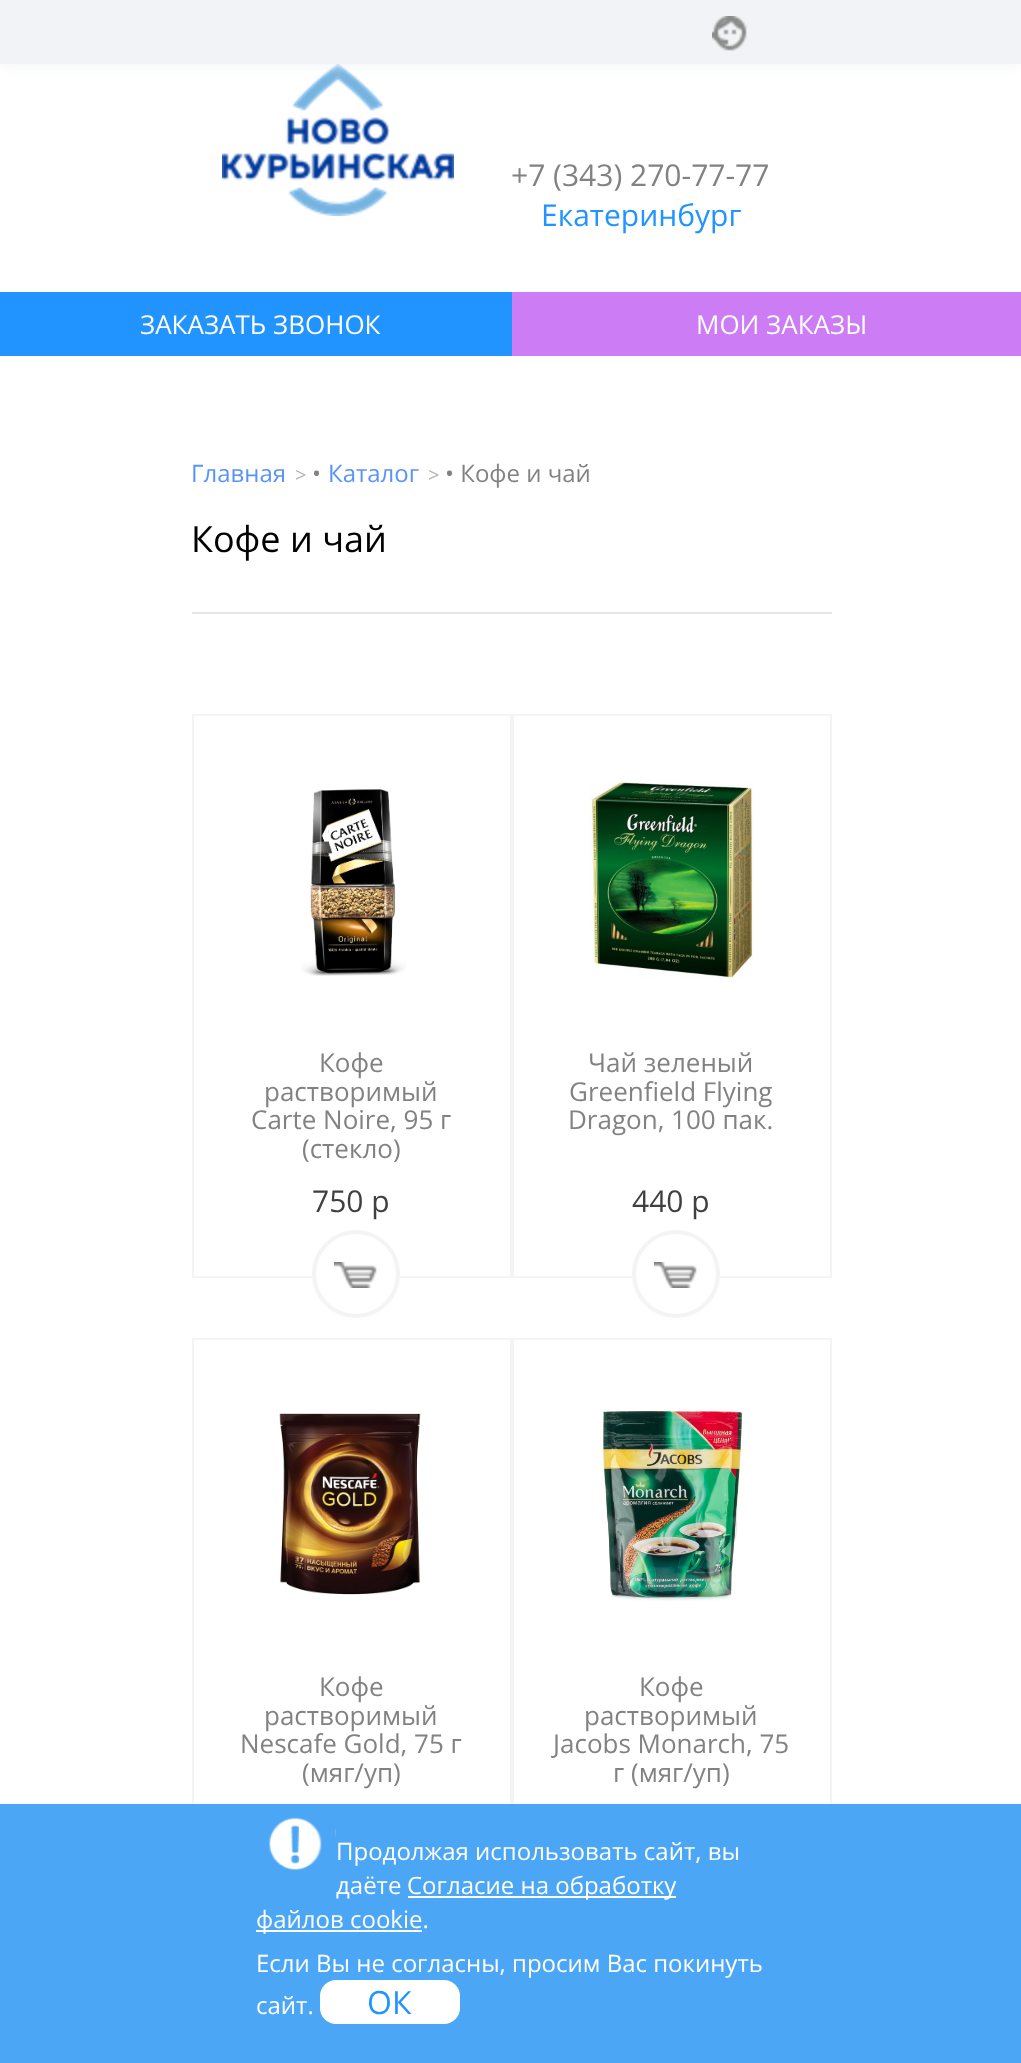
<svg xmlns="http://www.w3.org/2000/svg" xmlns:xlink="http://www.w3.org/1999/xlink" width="1021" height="2063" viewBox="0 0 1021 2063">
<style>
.cls-1{font:30px Open Sans;fill:#838282}
.cls-2{font:30px Open Sans;fill:#2194ff}
.cls-3{font:26px Open Sans;fill:#ffffff}
.cls-4{font:24px Open Sans;fill:#5893fc}
.cls-5{font:20px Open Sans;fill:#b3b2b2}
.cls-6{font:24px Open Sans;fill:#838282}
.cls-7{font:36px Open Sans;fill:#000000}
.cls-8{font:26px Open Sans;fill:#838282}
.cls-9{font:30px Open Sans;fill:#414040}
.cls-10{font:24px Open Sans;fill:#ffffff}
.cls-11{font:32px Open Sans;fill:#2194ff}
</style>
<rect width="100%" height="100%" fill="#ffffff"/>
<image xlink:href="image1.png" x="222" y="64" width="232" height="152"/>
<rect fill="#f1f3f6" filter="blur(7px)" x="0" y="0" width="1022" height="64"/>
<rect fill="#f1f3f6" x="0" y="0" width="1021" height="64"/>
<image xlink:href="image0.png" x="712" y="16" width="35" height="35"/>
<rect fill="#2294ff" x="0" y="292" width="512" height="64"/>
<rect fill="#cc7cf5" x="512" y="292" width="509" height="64"/>
<rect fill="#e5e5e5" x="192" y="612" width="640" height="2"/>
<rect fill="none" stroke="#f5f4f4" stroke-width="2" x="193" y="715" width="318" height="562"/>
<image xlink:href="image2.png" x="301" y="789" width="105" height="187"/>
<circle fill="#ffffff" cx="356" cy="1274" r="44"/>
<image xlink:href="image3.png" x="334" y="1262" width="43" height="26"/>
<circle fill="none" stroke="#f5f4f4" stroke-width="4" cx="356" cy="1274" r="42"/>
<rect fill="none" stroke="#f5f4f4" stroke-width="2" x="513" y="715" width="318" height="562"/>
<image xlink:href="image4.png" x="589" y="780" width="165" height="199"/>
<circle fill="#ffffff" cx="676" cy="1274" r="44"/>
<image xlink:href="image3.png" x="654" y="1262" width="43" height="26"/>
<circle fill="none" stroke="#f5f4f4" stroke-width="4" cx="676" cy="1274" r="42"/>
<rect fill="none" stroke="#f5f4f4" stroke-width="2" x="193" y="1339" width="318" height="562"/>
<image xlink:href="image5.png" x="279" y="1413" width="142" height="182"/>
<rect fill="none" stroke="#f5f4f4" stroke-width="2" x="513" y="1339" width="318" height="562"/>
<image xlink:href="image6.png" x="603" y="1411" width="139" height="190"/>
<rect fill="#4ba7f6" x="0" y="1804" width="1021" height="259"/>
<image xlink:href="image7.png" x="268" y="1817" width="68" height="53"/>
<rect fill="#ffffff" x="408" y="1896" width="268" height="2"/>
<rect fill="#ffffff" x="256" y="1930" width="166" height="2"/>
<rect fill="#ffffff" x="320" y="1980" width="140" height="44" rx="16"/>
<text class="cls-1" x="511" y="186">+7 (343) 270-77-77</text>
<text class="cls-2" x="541" y="226">Екатеринбург</text>
<text class="cls-3" x="140" y="334">ЗАКАЗАТЬ ЗВОНОК</text>
<text class="cls-3" x="696" y="334">МОИ ЗАКАЗЫ</text>
<text class="cls-4" x="191" y="482">Главная</text>
<text class="cls-5" x="295" y="482">&gt;</text>
<text class="cls-6" x="312" y="482">•</text>
<text class="cls-4" x="328" y="482">Каталог</text>
<text class="cls-5" x="428" y="482">&gt;</text>
<text class="cls-6" x="445" y="482">• Кофе и чай</text>
<text class="cls-7" x="191" y="552">Кофе и чай</text>
<text class="cls-8" x="319" y="1072">Кофе</text>
<text class="cls-8" x="264" y="1101">растворимый</text>
<text class="cls-8" x="251" y="1129">Carte Noire, 95 г</text>
<text class="cls-8" x="302" y="1158">(стекло)</text>
<text class="cls-9" x="312" y="1212">750 р</text>
<text class="cls-8" x="588" y="1072">Чай зеленый</text>
<text class="cls-8" x="569" y="1101">Greenfield Flying</text>
<text class="cls-8" x="568" y="1129">Dragon, 100 пак.</text>
<text class="cls-9" x="632" y="1212">440 р</text>
<text class="cls-8" x="319" y="1696">Кофе</text>
<text class="cls-8" x="264" y="1725">растворимый</text>
<text class="cls-8" x="240" y="1753">Nescafe Gold, 75 г</text>
<text class="cls-8" x="302" y="1782">(мяг/уп)</text>
<text class="cls-8" x="639" y="1696">Кофе</text>
<text class="cls-8" x="584" y="1725">растворимый</text>
<text class="cls-8" x="553" y="1753">Jacobs Monarch, 75</text>
<text class="cls-8" x="613" y="1782">г (мяг/уп)</text>
<text class="cls-10"><tspan x="336" y="1860">Продолжая использовать сайт, вы</tspan><tspan x="336" y="1894">даёте</tspan></text>
<text class="cls-10" x="407" y="1894">Согласие на обработку</text>
<text class="cls-10"><tspan x="256" y="1928">файлов cookie.</tspan><tspan x="256" y="1972">Если Вы не согласны, просим Вас покинуть</tspan><tspan x="256" y="2014">сайт.</tspan></text>
<text class="cls-11" x="367" y="2014">ОК</text>
</svg>
